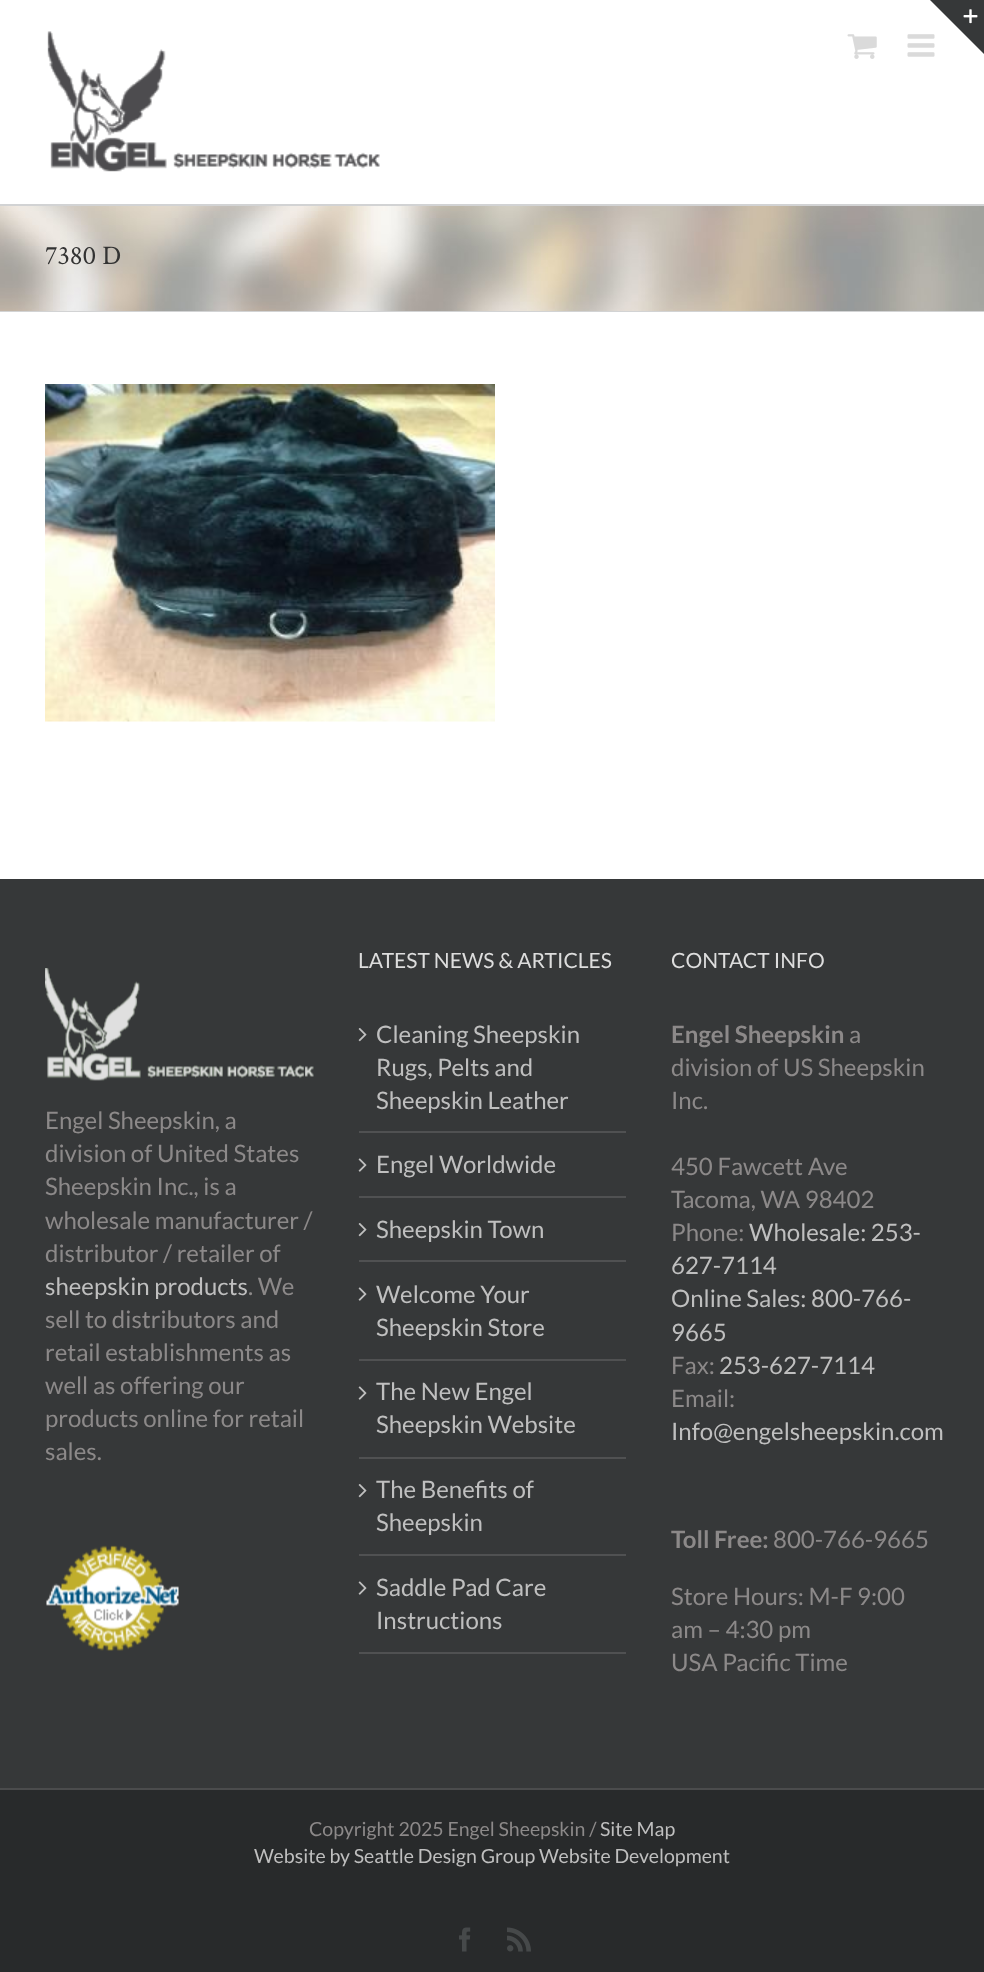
<svg xmlns="http://www.w3.org/2000/svg" xmlns:xlink="http://www.w3.org/1999/xlink" width="984" height="1972" viewBox="0 0 984 1972">
<style>
.cls-1{font:27px Crimson Text;fill:#333333}
.cls-2{font:24px Lato;fill:#8c8989}
.cls-3{font:24px Lato;fill:#bfbfbf}
.cls-4{font:21px Lato;fill:#dddddd}
.cls-5{font:bold 24px Lato;fill:#8c8989}
.cls-6{font:19.5px Lato;fill:#8c8989}
.cls-7{font:19.5px Lato;fill:#bfbfbf}
</style>
<rect width="100%" height="100%" fill="#ffffff"/>
<image xlink:href="image0.png" x="47" y="31" width="333" height="141"/>
<image xlink:href="image1.png" x="847" y="34" width="30" height="25"/>
<image xlink:href="image2.png" x="907" y="34" width="28" height="23"/>
<path fill="#363839" d="M930 0H984V54Z"/>
<image xlink:href="image3.png" x="963" y="9" width="15" height="15"/>
<image xlink:href="image4.png" x="0" y="206" width="984" height="105"/>
<rect fill="#d2d3d4" x="0" y="204" width="984" height="2"/>
<rect fill="#d2d3d4" x="0" y="311" width="984" height="1"/>
<image xlink:href="image5.png" x="45" y="384" width="450" height="338"/>
<rect fill="#363839" x="0" y="879" width="984" height="909"/>
<image xlink:href="image6.png" x="45" y="968" width="269" height="113"/>
<image xlink:href="image7.png" x="46" y="1545" width="133" height="106"/>
<rect fill="#505152" x="359" y="1131" width="267" height="2"/>
<image xlink:href="image8.png" x="358" y="1028" width="9" height="14"/>
<rect fill="#505152" x="359" y="1196" width="267" height="2"/>
<image xlink:href="image9.png" x="358" y="1158" width="9" height="14"/>
<rect fill="#505152" x="359" y="1260" width="267" height="2"/>
<image xlink:href="image8.png" x="358" y="1223" width="9" height="14"/>
<rect fill="#505152" x="359" y="1359" width="267" height="2"/>
<image xlink:href="image9.png" x="358" y="1287" width="9" height="14"/>
<rect fill="#505152" x="359" y="1457" width="267" height="2"/>
<image xlink:href="image9.png" x="358" y="1386" width="9" height="14"/>
<rect fill="#505152" x="359" y="1554" width="267" height="2"/>
<image xlink:href="image8.png" x="358" y="1484" width="9" height="14"/>
<rect fill="#505152" x="359" y="1652" width="267" height="2"/>
<image xlink:href="image9.png" x="358" y="1581" width="9" height="14"/>
<rect fill="#282a2b" x="0" y="1790" width="984" height="182"/>
<rect fill="#4b4c4d" x="0" y="1788" width="984" height="2"/>
<image xlink:href="image10.png" x="459" y="1927" width="12" height="25"/>
<image xlink:href="image11.png" x="507" y="1927" width="24" height="25"/>
<text class="cls-1" x="45" y="264">7380 D</text>
<text class="cls-2"><tspan x="45" y="1129">Engel Sheepskin, a</tspan><tspan x="45" y="1162">division of United States</tspan><tspan x="45" y="1195">Sheepskin Inc., is a</tspan><tspan x="45" y="1229">wholesale manufacturer /</tspan><tspan x="45" y="1262">distributor / retailer of</tspan></text>
<text class="cls-3" x="45" y="1295">sheepskin products</text>
<text class="cls-2" x="248" y="1295">. We</text>
<text class="cls-2"><tspan x="45" y="1328">sell to distributors and</tspan><tspan x="45" y="1361">retail establishments as</tspan><tspan x="45" y="1394">well as offering our</tspan><tspan x="45" y="1427">products online for retail</tspan><tspan x="45" y="1460">sales.</tspan></text>
<text class="cls-4" x="358" y="968">LATEST NEWS &amp; ARTICLES</text>
<text class="cls-3"><tspan x="376" y="1043">Cleaning Sheepskin</tspan><tspan x="376" y="1076">Rugs, Pelts and</tspan><tspan x="376" y="1109">Sheepskin Leather</tspan></text>
<text class="cls-3" x="376" y="1173">Engel Worldwide</text>
<text class="cls-3" x="376" y="1238">Sheepskin Town</text>
<text class="cls-3"><tspan x="376" y="1303">Welcome Your</tspan><tspan x="376" y="1336">Sheepskin Store</tspan></text>
<text class="cls-3"><tspan x="376" y="1400">The New Engel</tspan><tspan x="376" y="1433">Sheepskin Website</tspan></text>
<text class="cls-3"><tspan x="376" y="1498">The Benefits of</tspan><tspan x="376" y="1531">Sheepskin</tspan></text>
<text class="cls-3"><tspan x="376" y="1596">Saddle Pad Care</tspan><tspan x="376" y="1629">Instructions</tspan></text>
<text class="cls-4" x="671" y="968">CONTACT INFO</text>
<text class="cls-5" x="671" y="1043">Engel Sheepskin</text>
<text class="cls-2" x="849" y="1043">a</text>
<text class="cls-2"><tspan x="671" y="1076">division of US Sheepskin</tspan><tspan x="671" y="1109">Inc.</tspan></text>
<text class="cls-2"><tspan x="671" y="1175">450 Fawcett Ave</tspan><tspan x="671" y="1208">Tacoma, WA 98402</tspan><tspan x="671" y="1241">Phone:</tspan></text>
<text class="cls-3" x="749" y="1241">Wholesale: 253-</text>
<text class="cls-3"><tspan x="671" y="1274">627-7114</tspan><tspan x="671" y="1307">Online Sales: 800-766-</tspan><tspan x="671" y="1341">9665</tspan></text>
<text class="cls-2" x="671" y="1374">Fax:</text>
<text class="cls-3" x="719" y="1374">253-627-7114</text>
<text class="cls-2" x="671" y="1407">Email:</text>
<text class="cls-3" x="671" y="1440">Info@engelsheepskin.com</text>
<text class="cls-5" x="671" y="1548">Toll Free:</text>
<text class="cls-2" x="773" y="1548">800-766-9665</text>
<text class="cls-2"><tspan x="671" y="1605">Store Hours: M-F 9:00</tspan><tspan x="671" y="1638">am – 4:30 pm</tspan><tspan x="671" y="1671">USA Pacific Time</tspan></text>
<text class="cls-6" x="309" y="1836">Copyright 2025 Engel Sheepskin /</text>
<text class="cls-7" x="600" y="1836">Site Map</text>
<text class="cls-7" x="254" y="1863">Website by Seattle Design Group Website Development</text>
</svg>
